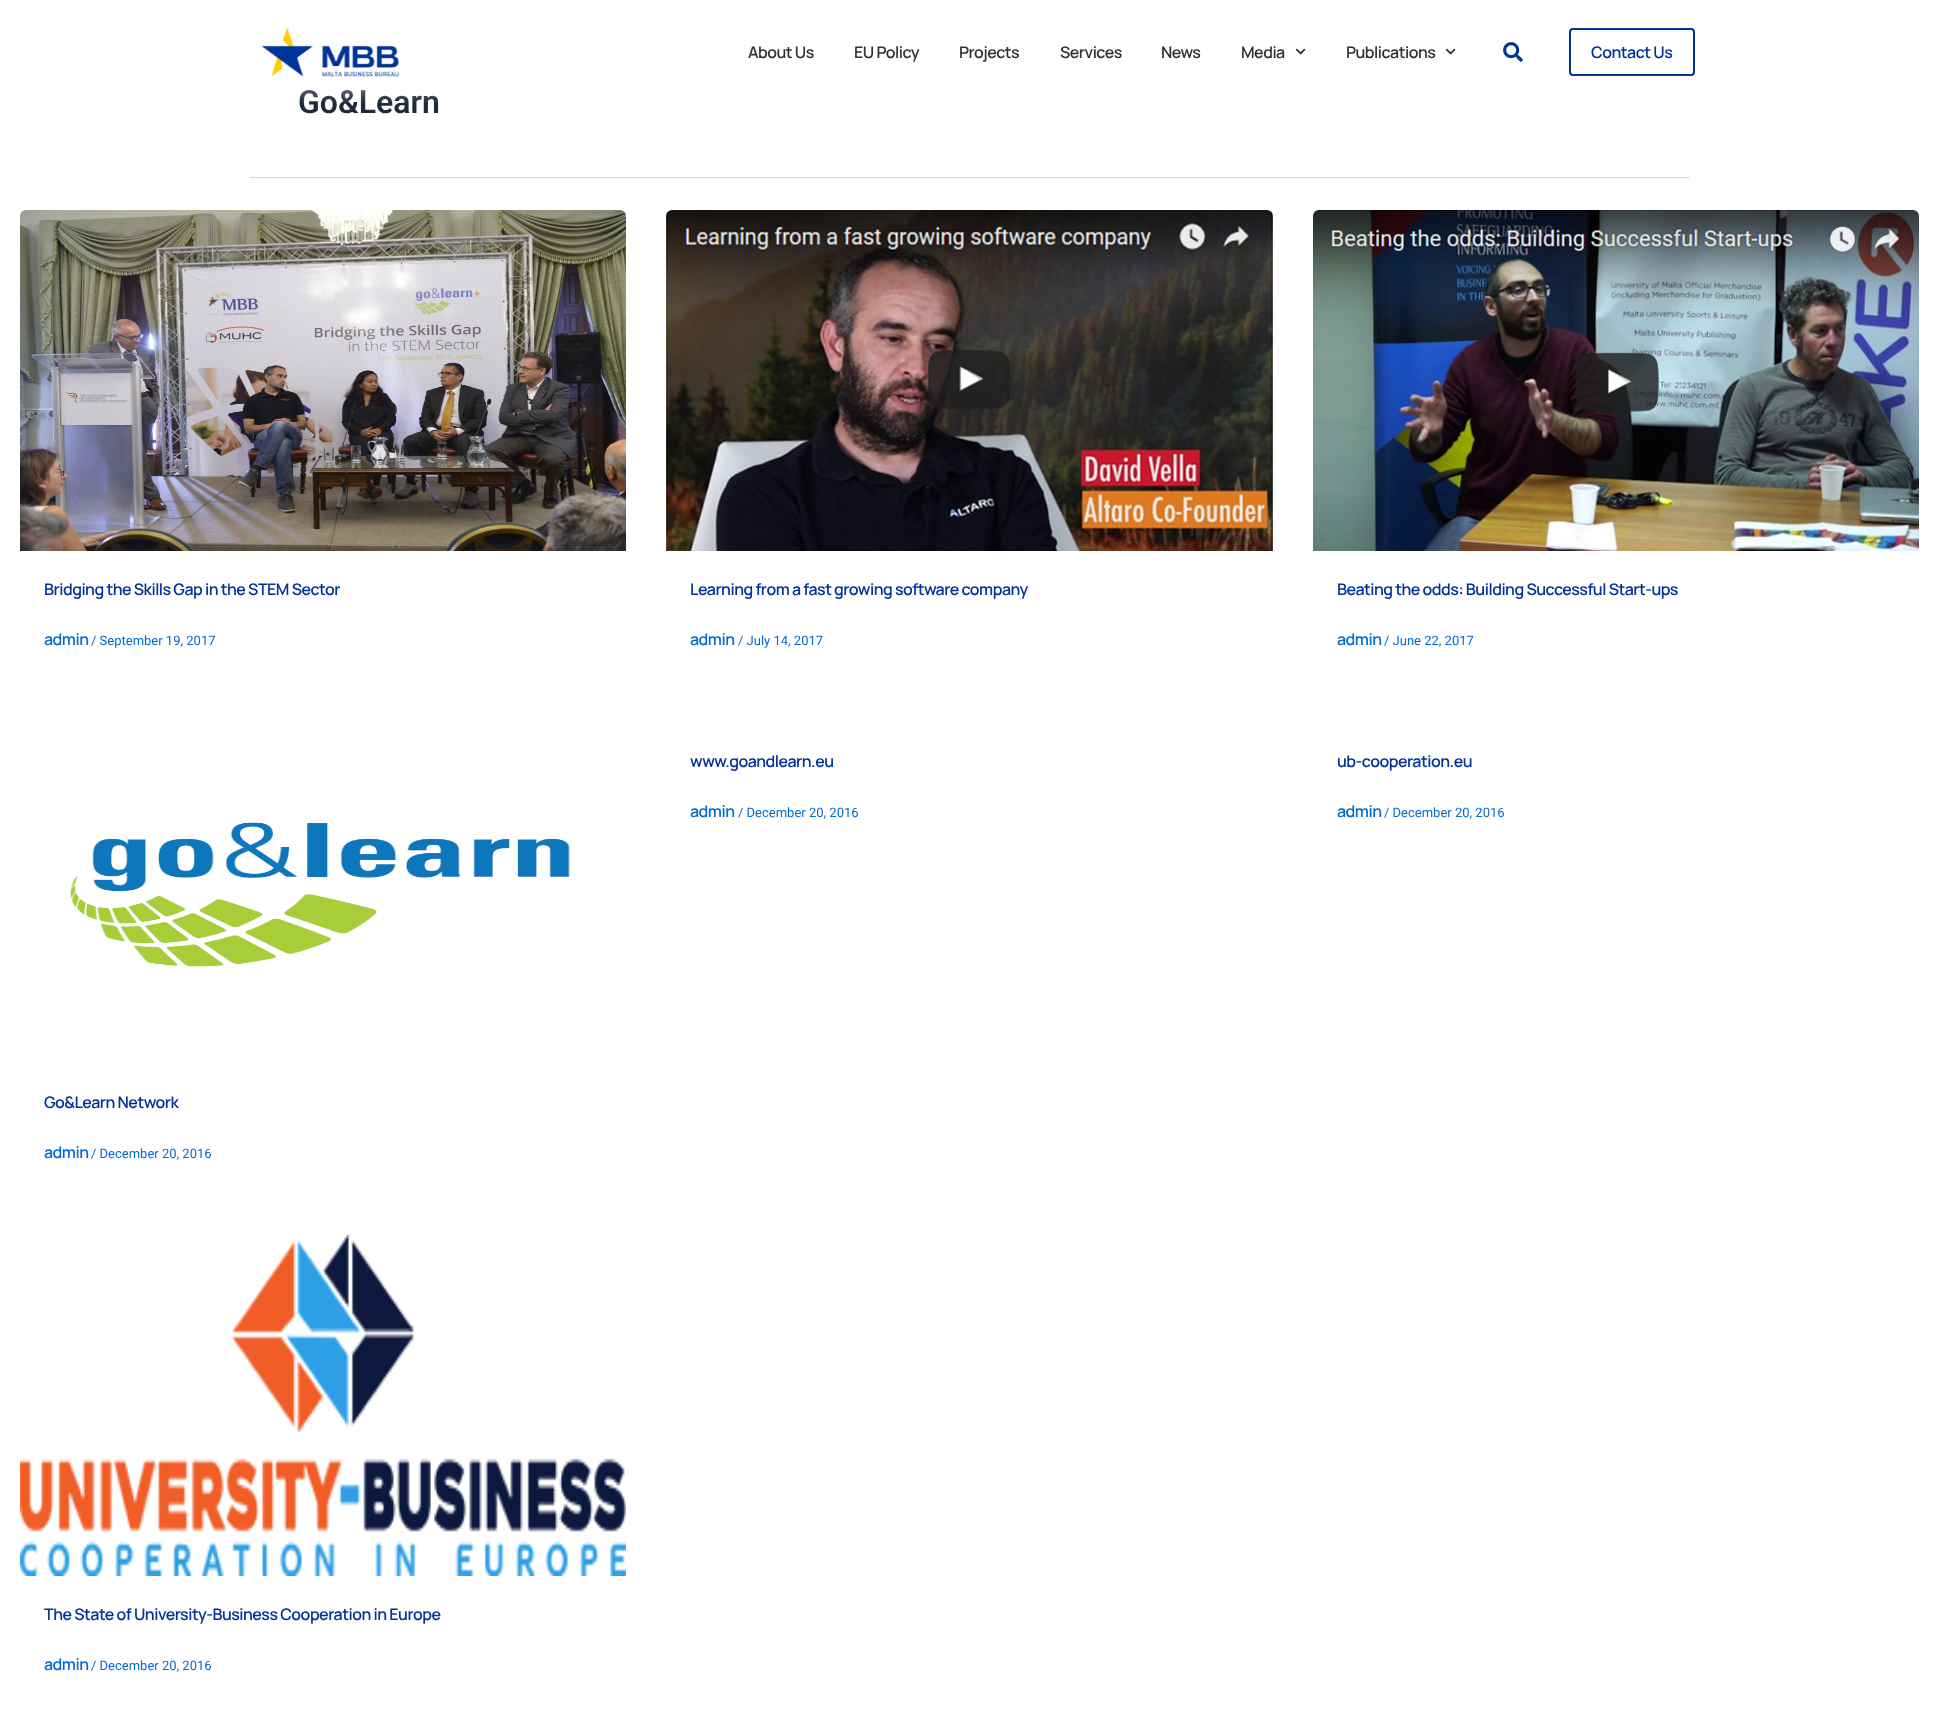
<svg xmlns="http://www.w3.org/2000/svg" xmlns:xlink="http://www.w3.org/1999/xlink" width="1939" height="1723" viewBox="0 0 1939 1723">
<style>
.cls-1{font:600 16px Manrope;letter-spacing:-0.5px;fill:#303030}
.cls-2{font:600 16px Manrope;letter-spacing:-0.5px;fill:#003399}
.cls-3{font:600 32px Roboto;fill:#1e293b}
.cls-4{font:600 16px Manrope;letter-spacing:-0.5px;fill:#046bd2}
.cls-5{font:13px Roboto;fill:#046bd2}
</style>
<defs>
<linearGradient id="g1" gradientUnits="userSpaceOnUse" x1="970" y1="0" x2="970" y2="104"><stop offset="0.5" stop-color="#ffffff" stop-opacity="0.85"/><stop offset="1" stop-color="#ffffff" stop-opacity="0"/></linearGradient>
</defs>
<rect width="100%" height="100%" fill="#ffffff"/>
<image xlink:href="image0.png" x="261" y="27" width="139" height="50"/>
<image xlink:href="image1.png" x="1295" y="48" width="11" height="7"/>
<image xlink:href="image1.png" x="1445" y="48" width="11" height="7"/>
<image xlink:href="image2.png" x="1503" y="42" width="20" height="20"/>
<rect fill="none" stroke="#003399" stroke-width="2" x="1570" y="29" width="124" height="46" rx="3"/>
<rect fill="#d1d5db" x="250" y="177" width="1440" height="1"/>
<image xlink:href="image3.png" x="20" y="210" width="606" height="341"/>
<image xlink:href="image4.png" x="666" y="210" width="607" height="341"/>
<image xlink:href="image5.png" x="1313" y="210" width="606" height="341"/>
<image xlink:href="image6.png" x="69" y="822" width="501" height="145"/>
<image xlink:href="image7.png" x="20" y="1235" width="606" height="341"/>
<text class="cls-1" x="748" y="58">About Us</text>
<text class="cls-1" x="854" y="58">EU Policy</text>
<text class="cls-1" x="959" y="58">Projects</text>
<text class="cls-1" x="1060" y="58">Services</text>
<text class="cls-1" x="1161" y="58">News</text>
<text class="cls-1" x="1241" y="58">Media</text>
<text class="cls-1" x="1346" y="58">Publications</text>
<text class="cls-2" x="1591" y="58">Contact Us</text>
<text class="cls-3" x="298" y="113">Go&amp;Learn</text>
<rect fill="url(#g1)" x="299" y="89" width="139" height="14"/>
<text class="cls-2" x="44" y="595">Bridging the Skills Gap in the STEM Sector</text>
<text class="cls-4" x="44" y="645">admin</text>
<text class="cls-5" x="91" y="645">/ September 19, 2017</text>
<text class="cls-2" x="690" y="595">Learning from a fast growing software company</text>
<text class="cls-4" x="690" y="645">admin</text>
<text class="cls-5" x="738" y="645">/ July 14, 2017</text>
<text class="cls-2" x="1337" y="595">Beating the odds: Building Successful Start-ups</text>
<text class="cls-4" x="1337" y="645">admin</text>
<text class="cls-5" x="1384" y="645">/ June 22, 2017</text>
<text class="cls-2" x="690" y="767">www.goandlearn.eu</text>
<text class="cls-4" x="690" y="817">admin</text>
<text class="cls-5" x="738" y="817">/ December 20, 2016</text>
<text class="cls-2" x="1337" y="767">ub-cooperation.eu</text>
<text class="cls-4" x="1337" y="817">admin</text>
<text class="cls-5" x="1384" y="817">/ December 20, 2016</text>
<text class="cls-2" x="44" y="1108">Go&amp;Learn Network</text>
<text class="cls-4" x="44" y="1158">admin</text>
<text class="cls-5" x="91" y="1158">/ December 20, 2016</text>
<text class="cls-2" x="44" y="1620">The State of University-Business Cooperation in Europe</text>
<text class="cls-4" x="44" y="1670">admin</text>
<text class="cls-5" x="91" y="1670">/ December 20, 2016</text>
</svg>
